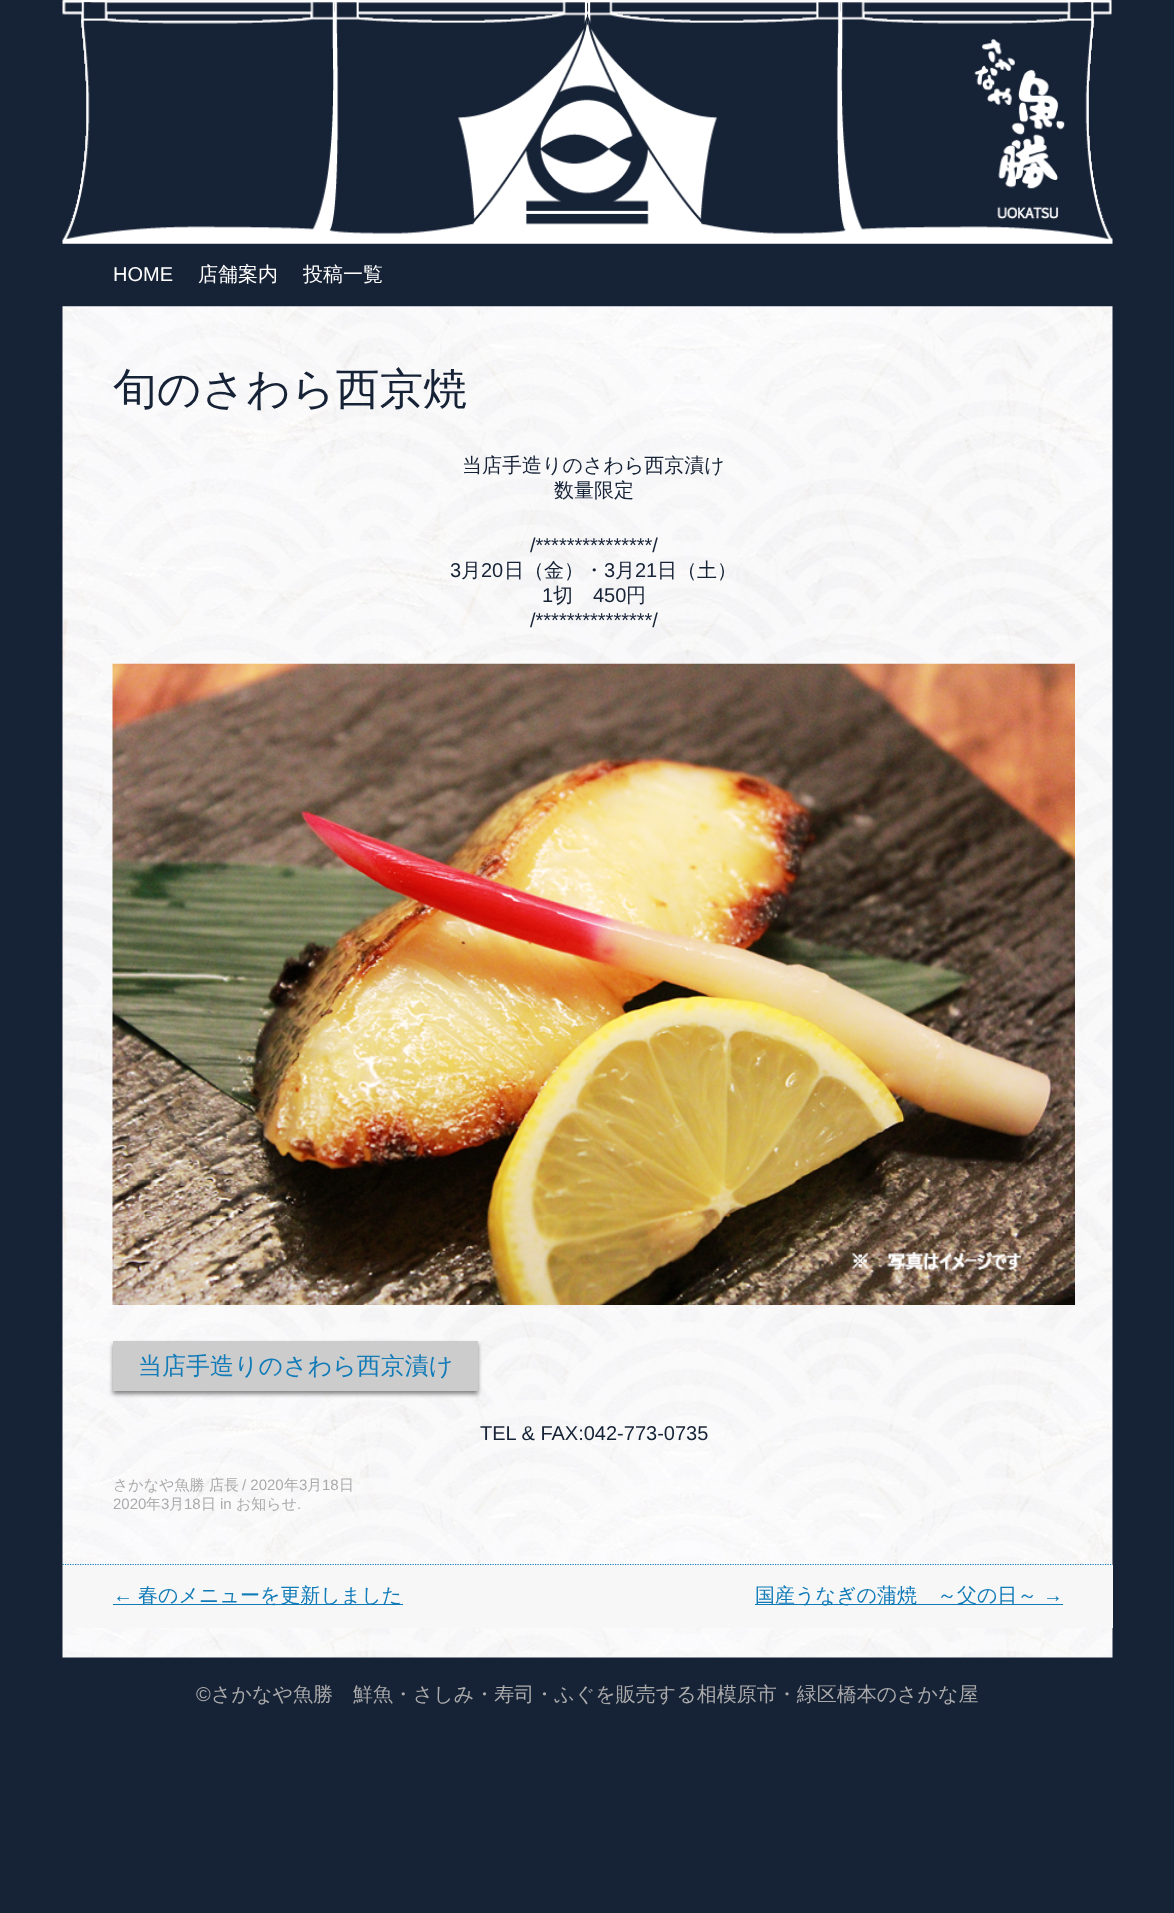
<svg xmlns="http://www.w3.org/2000/svg" xmlns:xlink="http://www.w3.org/1999/xlink" width="1174" height="1913" viewBox="0 0 1174 1913">
<style>
.cls-1{font:20px Liberation Sans;fill:#ffffff}
.cls-2{font:500 20px WenQuanYi Zen Hei;fill:#ffffff}
.cls-3{font:500 43.75px WenQuanYi Zen Hei;fill:#162236}
.cls-4{font:500 20px WenQuanYi Zen Hei;fill:#162236}
.cls-5{font:20px Liberation Sans;fill:#162236}
.cls-6{font:500 24px WenQuanYi Zen Hei;fill:#117bb8}
.cls-7{font:500 15px WenQuanYi Zen Hei;fill:#aaaaaa}
.cls-8{font:15px Liberation Sans;fill:#aaaaaa}
.cls-9{font:20px Liberation Sans;fill:#117bb8}
.cls-10{font:500 20px WenQuanYi Zen Hei;fill:#117bb8}
.cls-11{font:20px Liberation Sans;fill:#aaaaaa}
.cls-12{font:500 20px WenQuanYi Zen Hei;fill:#aaaaaa}
</style>
<rect width="100%" height="100%" fill="#162236"/>
<image xlink:href="image0.png" x="62" y="0" width="1051" height="244"/>
<image xlink:href="image1.png" x="62" y="306" width="1051" height="1352"/>
<path fill="none" stroke="#117bb8" stroke-width="1.2" stroke-dasharray="1.25 1.25" d="M62.5 1564.5H1112.5"/>
<image xlink:href="image2.png" x="112" y="663" width="963" height="642"/>
<rect fill="#818181" filter="blur(2px)" x="113" y="1344" width="365" height="50"/>
<rect fill="#cccccc" x="113" y="1341" width="365" height="50"/>
<rect fill="#f7f7f7" x="63" y="1565" width="1050" height="63"/>
<rect fill="#117bb8" x="113" y="1604" width="290" height="1"/>
<rect fill="#117bb8" x="755" y="1604" width="308" height="1"/>
<text class="cls-1" x="113" y="281">HOME</text>
<text class="cls-2" x="198" y="281">店舗案内</text>
<text class="cls-2" x="303" y="281">投稿一覧</text>
<text class="cls-3" x="113" y="404">旬のさわら西京焼</text>
<text class="cls-4" x="462" y="472">当店手造りのさわら西京漬け</text>
<text class="cls-4" x="554" y="497">数量限定</text>
<text class="cls-5" x="530" y="552">/***************/</text>
<text class="cls-5" x="450" y="577">3</text>
<text class="cls-4" x="461" y="577">月</text>
<text class="cls-5" x="481" y="577">20</text>
<text class="cls-4" x="504" y="577">日（金）・</text>
<text class="cls-5" x="604" y="577">3</text>
<text class="cls-4" x="615" y="577">月</text>
<text class="cls-5" x="635" y="577">21</text>
<text class="cls-4" x="657" y="577">日（土）</text>
<text class="cls-5" x="542" y="602">1</text>
<text class="cls-4" x="553" y="602">切</text>
<text class="cls-5" x="593" y="602">450</text>
<text class="cls-4" x="626" y="602">円</text>
<text class="cls-5" x="530" y="627">/***************/</text>
<text class="cls-6" x="138" y="1374">当店手造りのさわら西京漬け</text>
<text class="cls-5" x="480" y="1440">TEL &amp; FAX:042-773-0735</text>
<text class="cls-7" x="113" y="1490">さかなや魚勝 店長</text>
<text class="cls-8" x="242" y="1490">/ 2020</text>
<text class="cls-7" x="284" y="1490">年</text>
<text class="cls-8" x="299" y="1490">3</text>
<text class="cls-7" x="307" y="1490">月</text>
<text class="cls-8" x="322" y="1490">18</text>
<text class="cls-7" x="339" y="1490">日</text>
<text class="cls-8" x="113" y="1509">2020</text>
<text class="cls-7" x="146" y="1509">年</text>
<text class="cls-8" x="161" y="1509">3</text>
<text class="cls-7" x="169" y="1509">月</text>
<text class="cls-8" x="184" y="1509">18</text>
<text class="cls-7" x="201" y="1509">日</text>
<text class="cls-8" x="220" y="1509">in</text>
<text class="cls-7" x="236" y="1509">お知らせ</text>
<text class="cls-8" x="297" y="1509">.</text>
<text class="cls-9" x="113" y="1602">←</text>
<text class="cls-10" x="138" y="1602">春のメニューを更新しました</text>
<text class="cls-10" x="755" y="1602">国産うなぎの蒲焼　～父の日～</text>
<text class="cls-9" x="1043" y="1602">→</text>
<text class="cls-11" x="196" y="1701">©</text>
<text class="cls-12" x="211" y="1701">さかなや魚勝　鮮魚・さしみ・寿司・ふぐを販売する相模原市・緑区橋本のさかな屋</text>
</svg>
